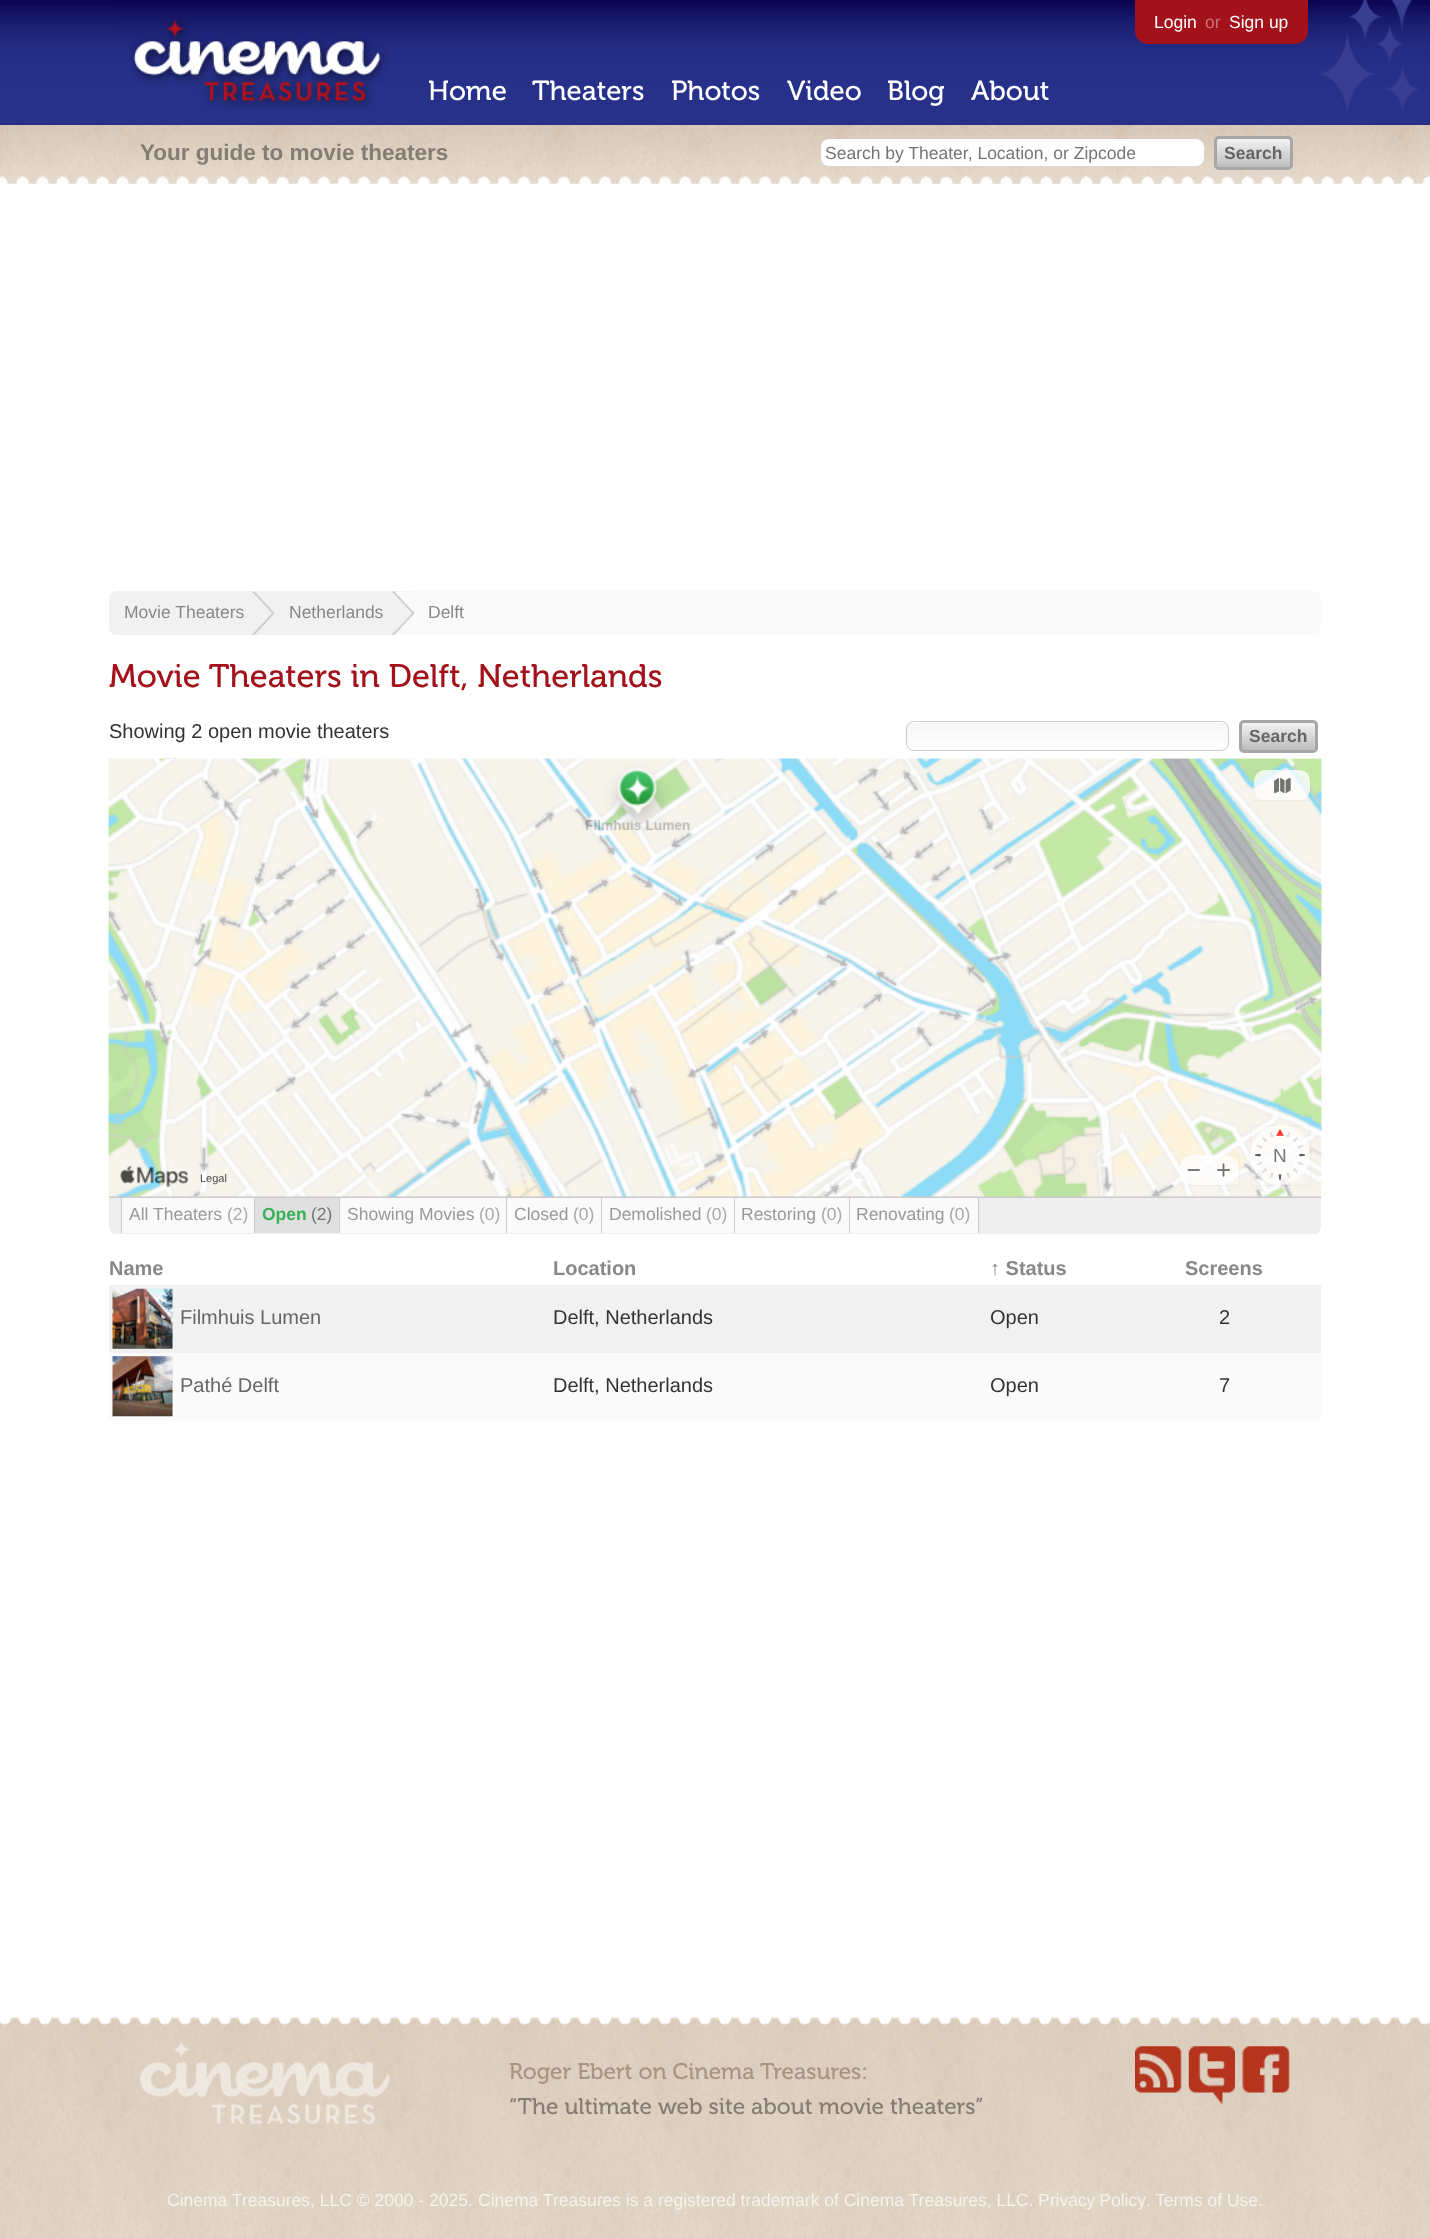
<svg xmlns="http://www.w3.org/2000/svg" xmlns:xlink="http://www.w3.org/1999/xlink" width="1430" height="2238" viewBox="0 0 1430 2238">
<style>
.cls-1{font:27.5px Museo;fill:#ffffff}
.cls-2{font:17.5px Liberation Sans;fill:#ffffff}
.cls-3{font:17.5px Liberation Sans;fill:#c87176}
.cls-4{font:bold 22.5px Liberation Sans;fill:#857d74}
.cls-5{font:17.5px Liberation Sans;fill:#757575}
.cls-6{font:bold 17.5px Liberation Sans;fill:#666666}
.cls-7{font:17.5px Liberation Sans;fill:#888888}
.cls-8{font:32.5px Museo;fill:#a3121b}
.cls-9{font:20px Liberation Sans;fill:#333333}
.cls-10{font:19px Liberation Sans;fill:#757575}
.cls-11{font:11px Liberation Sans;fill:#4a4947}
.cls-12{font:17.5px Liberation Sans;fill:#999999}
.cls-13{font:17.5px Liberation Sans;fill:#aaaaaa}
.cls-14{font:bold 17.5px Liberation Sans;fill:#38b257}
.cls-15{font:bold 20px Liberation Sans;fill:#888888}
.cls-16{font:20px Liberation Sans;fill:#666666}
.cls-17{font:22.5px Museo;fill:#a99382}
.cls-18{font:22.5px Museo;fill:#857d74}
.cls-19{font:17.5px Liberation Sans;fill:#f6f2ed}
</style>
<defs>
<linearGradient id="g1" gradientUnits="userSpaceOnUse" x1="1253" y1="139" x2="1253" y2="168"><stop offset="0" stop-color="#f2f2f2"/><stop offset="1" stop-color="#bdbdbd"/></linearGradient>
<clipPath id="clip1"><rect x="906" y="721" width="323" height="30" rx="8"/></clipPath>
<linearGradient id="g2" gradientUnits="userSpaceOnUse" x1="1068" y1="723" x2="1068" y2="750"><stop offset="0" stop-color="#f6f6f6"/><stop offset="1" stop-color="#ffffff"/></linearGradient>
<linearGradient id="g3" gradientUnits="userSpaceOnUse" x1="1278" y1="723" x2="1278" y2="750"><stop offset="0" stop-color="#f2f2f2"/><stop offset="1" stop-color="#bdbdbd"/></linearGradient>
</defs>
<rect width="100%" height="100%" fill="#ffffff"/>
<image xlink:href="image0.png" x="0" y="0" width="1430" height="125"/>
<image xlink:href="image1.png" x="115" y="0" width="1200" height="125"/>
<image xlink:href="image2.png" x="130" y="18" width="258" height="92"/>
<path fill="#a3121b" d="M1135 0H1308V31C1308 38 1302 44 1295 44H1148C1141 44 1135 38 1135 31Z"/>
<image xlink:href="image3.png" x="1318" y="0" width="101" height="116"/>
<image xlink:href="image4.png" x="0" y="125" width="1430" height="60"/>
<rect fill="#ffffff" x="821" y="139" width="383" height="27" rx="8"/>
<rect fill="url(#g1)" x="1216" y="139" width="74" height="29" rx="2.5"/>
<rect fill="none" stroke="#a6a6a6" stroke-width="3" x="1215.5" y="137.5" width="76" height="31" rx="3.5"/>
<rect fill="#fafafa" x="109" y="591" width="1212" height="44" rx="8"/>
<path fill="#f1f1f1" d="M117 591H274V635H117C112.5 635 109 631.5 109 627V599C109 594.5 112.5 591 117 591Z"/>
<image xlink:href="image5.png" x="251" y="591" width="23" height="44"/>
<rect fill="#f1f1f1" x="274" y="591" width="140" height="44"/>
<image xlink:href="image6.png" x="391" y="591" width="23" height="44"/>
<g clip-path="url(#clip1)">
<rect fill="url(#g2)" x="906" y="723" width="323" height="27"/>
</g>
<rect fill="none" stroke="#cccccc" x="906.5" y="721.5" width="322" height="29" rx="7.5"/>
<rect fill="url(#g3)" x="1241" y="723" width="74" height="27" rx="2.5"/>
<rect fill="none" stroke="#a6a6a6" stroke-width="3" x="1240.5" y="721.5" width="76" height="30" rx="3.5"/>
<path fill="#eeeeee" d="M109 1196H1321V1226C1321 1230.5 1317.5 1234 1313 1234H117C112.5 1234 109 1230.5 109 1226Z"/>
<rect fill="#cccccc" x="109" y="1196" width="1212" height="2"/>
<image xlink:href="image7.png" x="108" y="758" width="1214" height="439"/>
<image xlink:href="image8.png" x="108" y="758" width="1214" height="439"/>
<rect fill="none" stroke="#000000" stroke-opacity="0.05" stroke-width="0.6" x="1254.3" y="770.3" width="56.4" height="30.4"/>
<rect fill="#ffffff" fill-opacity="0.75" x="1254" y="770" width="56" height="30" rx="11"/>
<image xlink:href="image9.png" x="1274" y="777" width="17" height="17"/>
<rect fill="none" stroke="#000000" stroke-opacity="0.05" stroke-width="0.6" x="1179.3" y="1155.3" width="60.4" height="30.4"/>
<rect fill="#ffffff" fill-opacity="0.75" x="1179" y="1155" width="60" height="30" rx="15"/>
<image xlink:href="image10.png" x="1187" y="1169" width="13" height="2"/>
<image xlink:href="image11.png" x="1217" y="1163" width="13" height="14"/>
<rect fill="none" stroke="#000000" stroke-opacity="0.05" stroke-width="0.6" x="1250.3" y="1125.3" width="60.4" height="60.4"/>
<circle fill="#ffffff" fill-opacity="0.75" cx="1280" cy="1155" r="30"/>
<image xlink:href="image12.png" x="1255" y="1129" width="50" height="51"/>
<image xlink:href="image13.png" x="120" y="1165" width="69" height="23"/>
<path fill="#eeeeee" d="M1316 1234C1319 1233 1321 1229 1321 1226C1321 1230 1318 1232 1314 1232H116C112 1232 109 1230 109 1226C109 1229 111 1233 114 1234Z"/>
<rect fill="#fafafa" x="122" y="1198" width="132" height="35"/>
<rect fill="#cccccc" x="254" y="1198" width="1" height="35"/>
<rect fill="#cccccc" x="121" y="1198" width="1" height="35"/>
<rect fill="#e0e0e0" x="255" y="1198" width="84" height="35"/>
<rect fill="#cccccc" x="339" y="1198" width="1" height="35"/>
<rect fill="#fafafa" x="340" y="1198" width="394" height="35"/>
<rect fill="#cccccc" x="506" y="1198" width="1" height="35"/>
<rect fill="#cccccc" x="601" y="1198" width="1" height="35"/>
<rect fill="#cccccc" x="734" y="1198" width="1" height="35"/>
<rect fill="#fafafa" x="735" y="1198" width="114" height="35"/>
<rect fill="#cccccc" x="849" y="1198" width="1" height="35"/>
<rect fill="#fafafa" x="850" y="1198" width="128" height="35"/>
<rect fill="#cccccc" x="978" y="1198" width="1" height="35"/>
<rect fill="#f1f1f1" x="109" y="1285" width="1212" height="68"/>
<rect fill="#eeeeee" x="113" y="1289" width="60" height="60"/>
<image xlink:href="image14.png" x="112" y="1288" width="61" height="61"/>
<rect fill="#fafafa" x="109" y="1353" width="1212" height="67"/>
<rect fill="#eeeeee" x="113" y="1356" width="60" height="60"/>
<image xlink:href="image15.png" x="112" y="1356" width="61" height="61"/>
<image xlink:href="image16.png" x="0" y="2017" width="1430" height="221"/>
<image xlink:href="image17.png" x="140" y="2039" width="250" height="85"/>
<image xlink:href="image18.png" x="1135" y="2046" width="47" height="47"/>
<image xlink:href="image19.png" x="1188" y="2046" width="47" height="58"/>
<image xlink:href="image20.png" x="1242" y="2046" width="48" height="47"/>
<text class="cls-1" x="428" y="100">Home</text>
<text class="cls-1" x="532" y="100">Theaters</text>
<text class="cls-1" x="671" y="100">Photos</text>
<text class="cls-1" x="787" y="100">Video</text>
<text class="cls-1" x="887" y="100">Blog</text>
<text class="cls-1" x="971" y="100">About</text>
<text class="cls-2" x="1154" y="28">Login</text>
<text class="cls-3" x="1205" y="28">or</text>
<text class="cls-2" x="1229" y="28">Sign up</text>
<text class="cls-4" x="140" y="160">Your guide to movie theaters</text>
<text class="cls-5" x="825" y="159">Search by Theater, Location, or Zipcode</text>
<text class="cls-6" x="1224" y="159">Search</text>
<text class="cls-7" x="124" y="618">Movie Theaters</text>
<text class="cls-7" x="289" y="618">Netherlands</text>
<text class="cls-7" x="428" y="618">Delft</text>
<text class="cls-8" x="109" y="687">Movie Theaters in Delft, Netherlands</text>
<text class="cls-9" x="109" y="738">Showing 2 open movie theaters</text>
<text class="cls-6" x="1249" y="742">Search</text>
<text class="cls-10" x="1273" y="1162">N</text>
<text class="cls-11" x="200" y="1182">Legal</text>
<text class="cls-12" x="129" y="1220">All Theaters</text>
<text class="cls-13" x="227" y="1220">(2)</text>
<text class="cls-14" x="262" y="1220">Open</text>
<text class="cls-5" x="311" y="1220">(2)</text>
<text class="cls-12" x="347" y="1220">Showing Movies</text>
<text class="cls-13" x="479" y="1220">(0)</text>
<text class="cls-12" x="514" y="1220">Closed</text>
<text class="cls-13" x="573" y="1220">(0)</text>
<text class="cls-12" x="609" y="1220">Demolished</text>
<text class="cls-13" x="706" y="1220">(0)</text>
<text class="cls-12" x="741" y="1220">Restoring</text>
<text class="cls-13" x="821" y="1220">(0)</text>
<text class="cls-12" x="856" y="1220">Renovating</text>
<text class="cls-13" x="949" y="1220">(0)</text>
<text class="cls-15" x="109" y="1275">Name</text>
<text class="cls-15" x="553" y="1275">Location</text>
<text class="cls-15" x="990" y="1275">↑ Status</text>
<text class="cls-15" x="1185" y="1275">Screens</text>
<text class="cls-16" x="180" y="1324">Filmhuis Lumen</text>
<text class="cls-9" x="553" y="1324">Delft, Netherlands</text>
<text class="cls-9" x="990" y="1324">Open</text>
<text class="cls-9" x="1219" y="1324">2</text>
<text class="cls-16" x="180" y="1392">Pathé Delft</text>
<text class="cls-9" x="553" y="1392">Delft, Netherlands</text>
<text class="cls-9" x="990" y="1392">Open</text>
<text class="cls-9" x="1219" y="1392">7</text>
<text class="cls-17" x="509" y="2079">Roger Ebert on Cinema Treasures:</text>
<text class="cls-18" x="509" y="2114">“The ultimate web site about movie theaters”</text>
<text class="cls-19" x="167" y="2206">Cinema Treasures, LLC © 2000 -</text>
<text class="cls-19" x="429" y="2206">2025.</text>
<text class="cls-19" x="478" y="2206">Cinema Treasures is a registered trademark of Cinema Treasures, LLC.</text>
<text class="cls-19" x="1038" y="2206" word-spacing="-1">Privacy Policy</text>
<text class="cls-19" x="1146" y="2206">.</text>
<text class="cls-19" x="1155" y="2206">Terms of Use.</text>
</svg>
